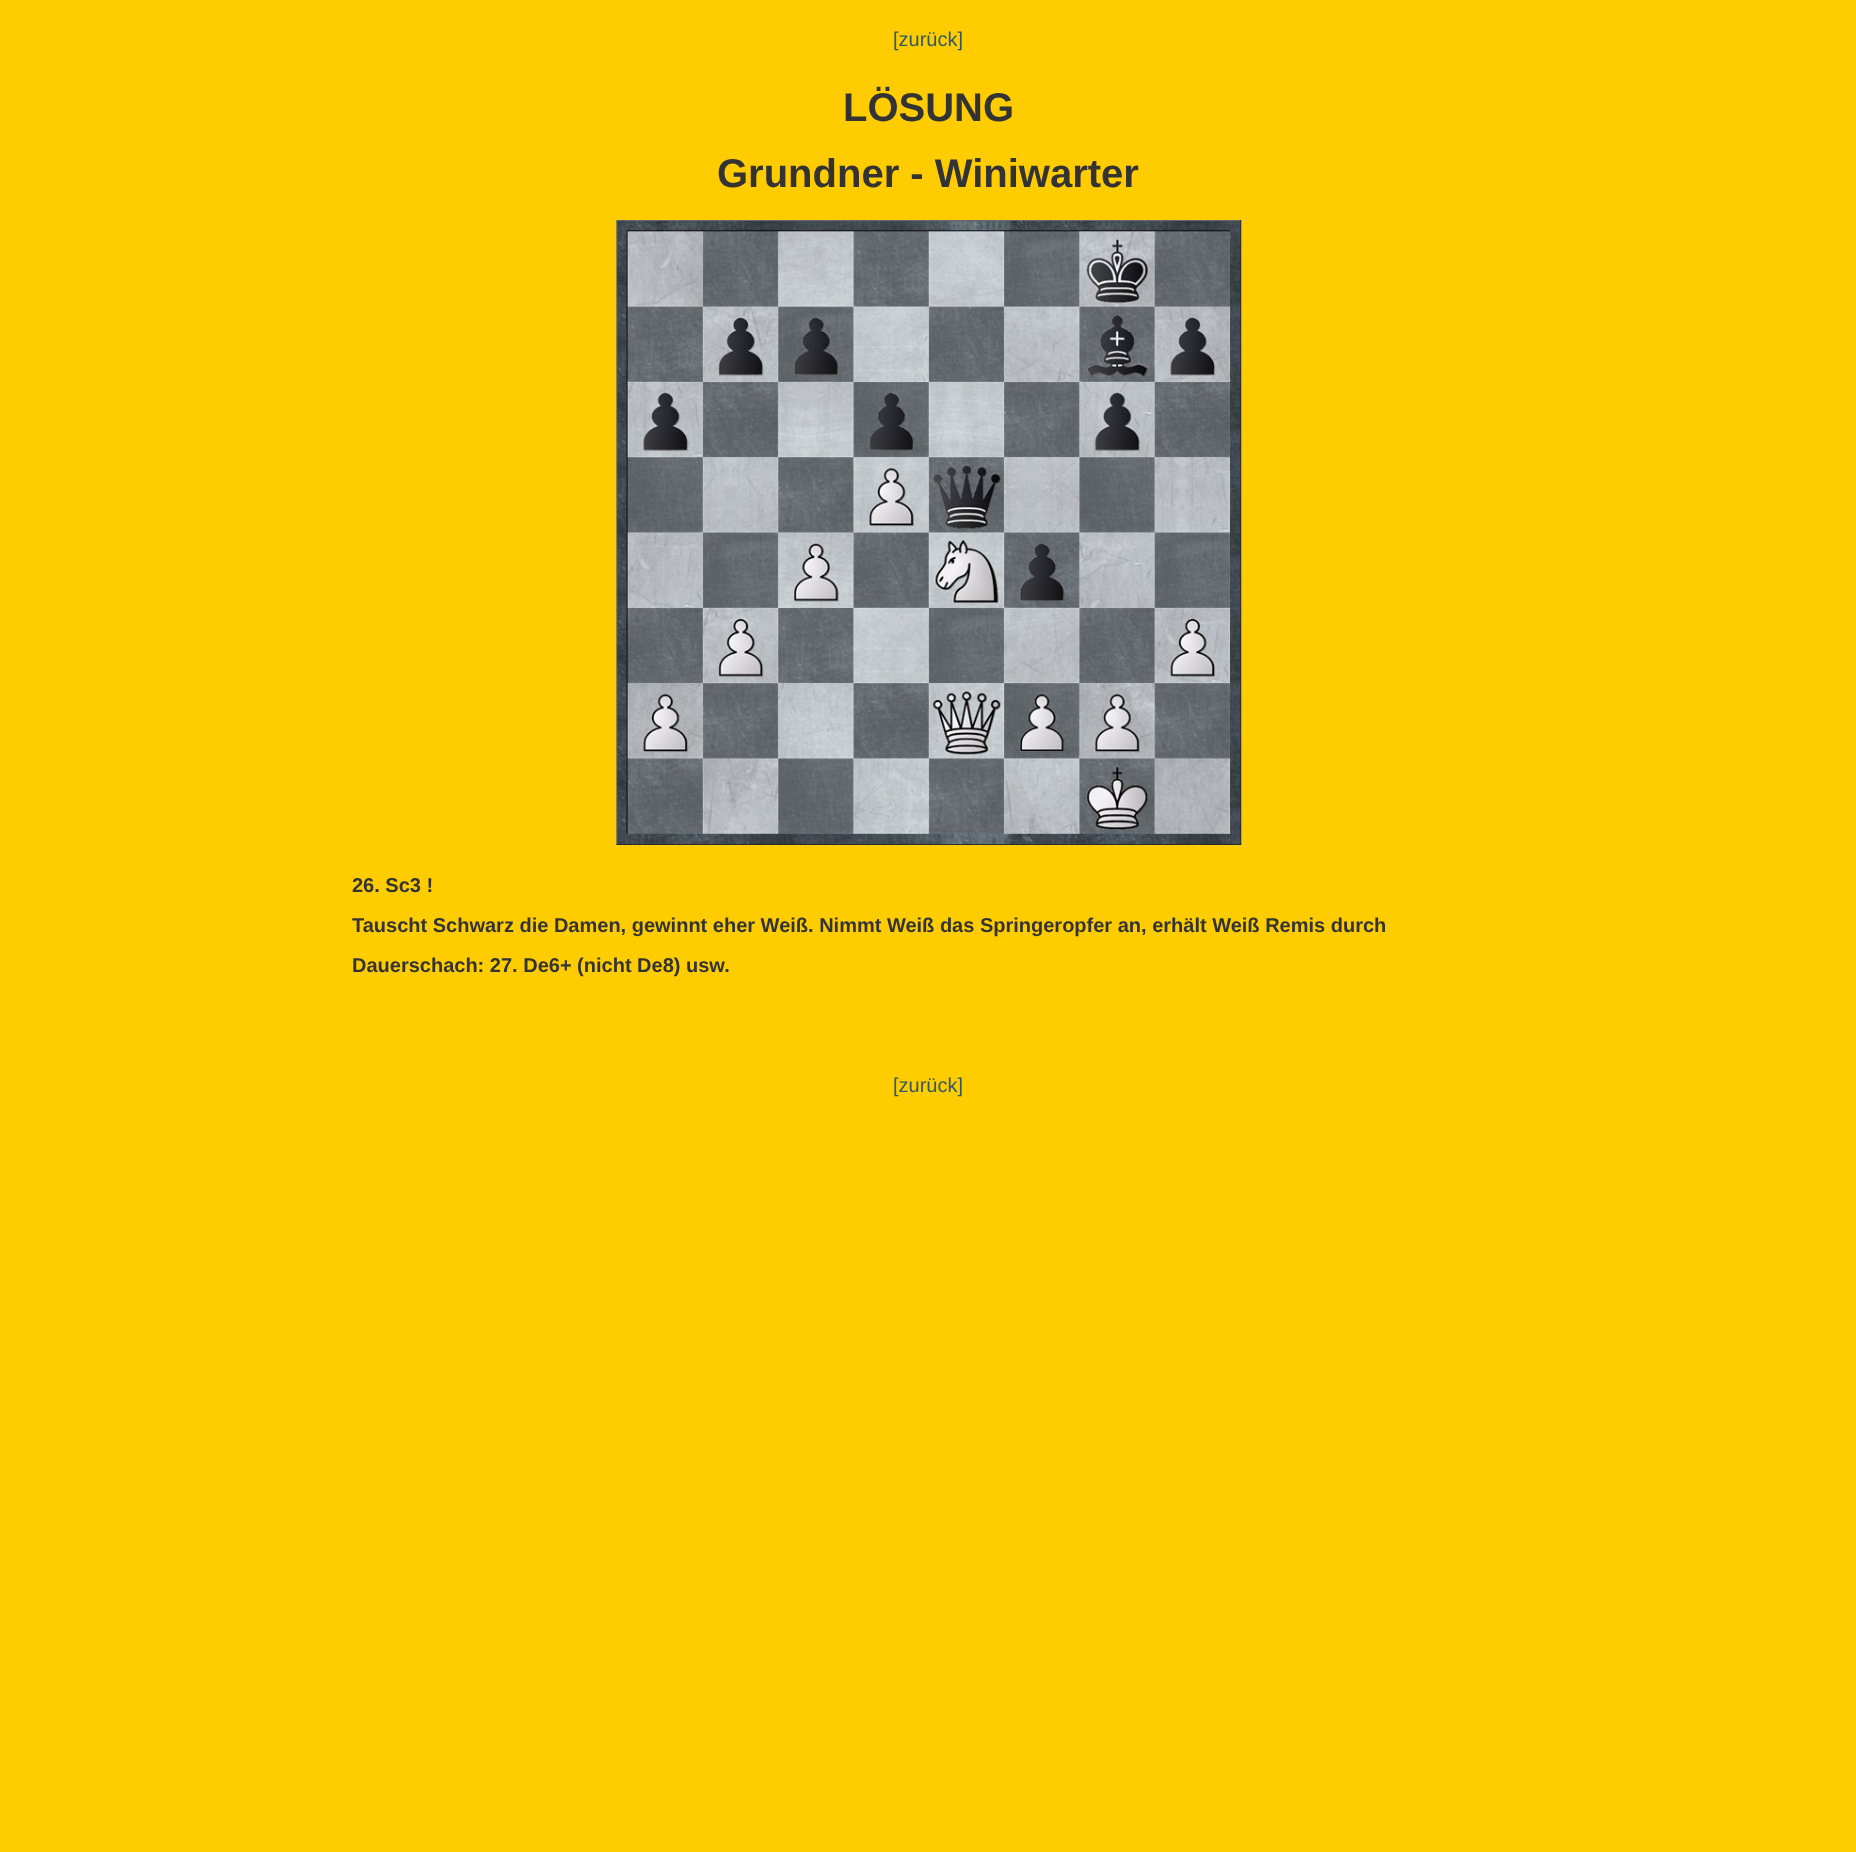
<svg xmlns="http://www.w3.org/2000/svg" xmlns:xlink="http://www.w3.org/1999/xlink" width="1856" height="1852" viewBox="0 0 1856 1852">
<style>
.cls-1{font:20px Liberation Sans;fill:#335863}
.cls-2{font:bold 40px Liberation Sans;fill:#333333}
.cls-3{font:bold 20px Liberation Sans;fill:#333333}
</style>
<rect width="100%" height="100%" fill="#ffcc00"/>
<image xlink:href="image0.png" x="616" y="220" width="626" height="625"/>
<text class="cls-1" x="893" y="46">[zurück]</text>
<text class="cls-2" x="843" y="121">LÖSUNG</text>
<text class="cls-2" x="717" y="187">Grundner - Winiwarter</text>
<text class="cls-3" x="352" y="892">26. Sc3 !</text>
<text class="cls-3" x="352" y="932">Tauscht Schwarz die Damen, gewinnt eher Weiß. Nimmt Weiß das Springeropfer an, erhält Weiß Remis durch</text>
<text class="cls-3" x="352" y="972">Dauerschach: 27. De6+ (nicht De8) usw.</text>
<text class="cls-1" x="893" y="1092">[zurück]</text>
</svg>
